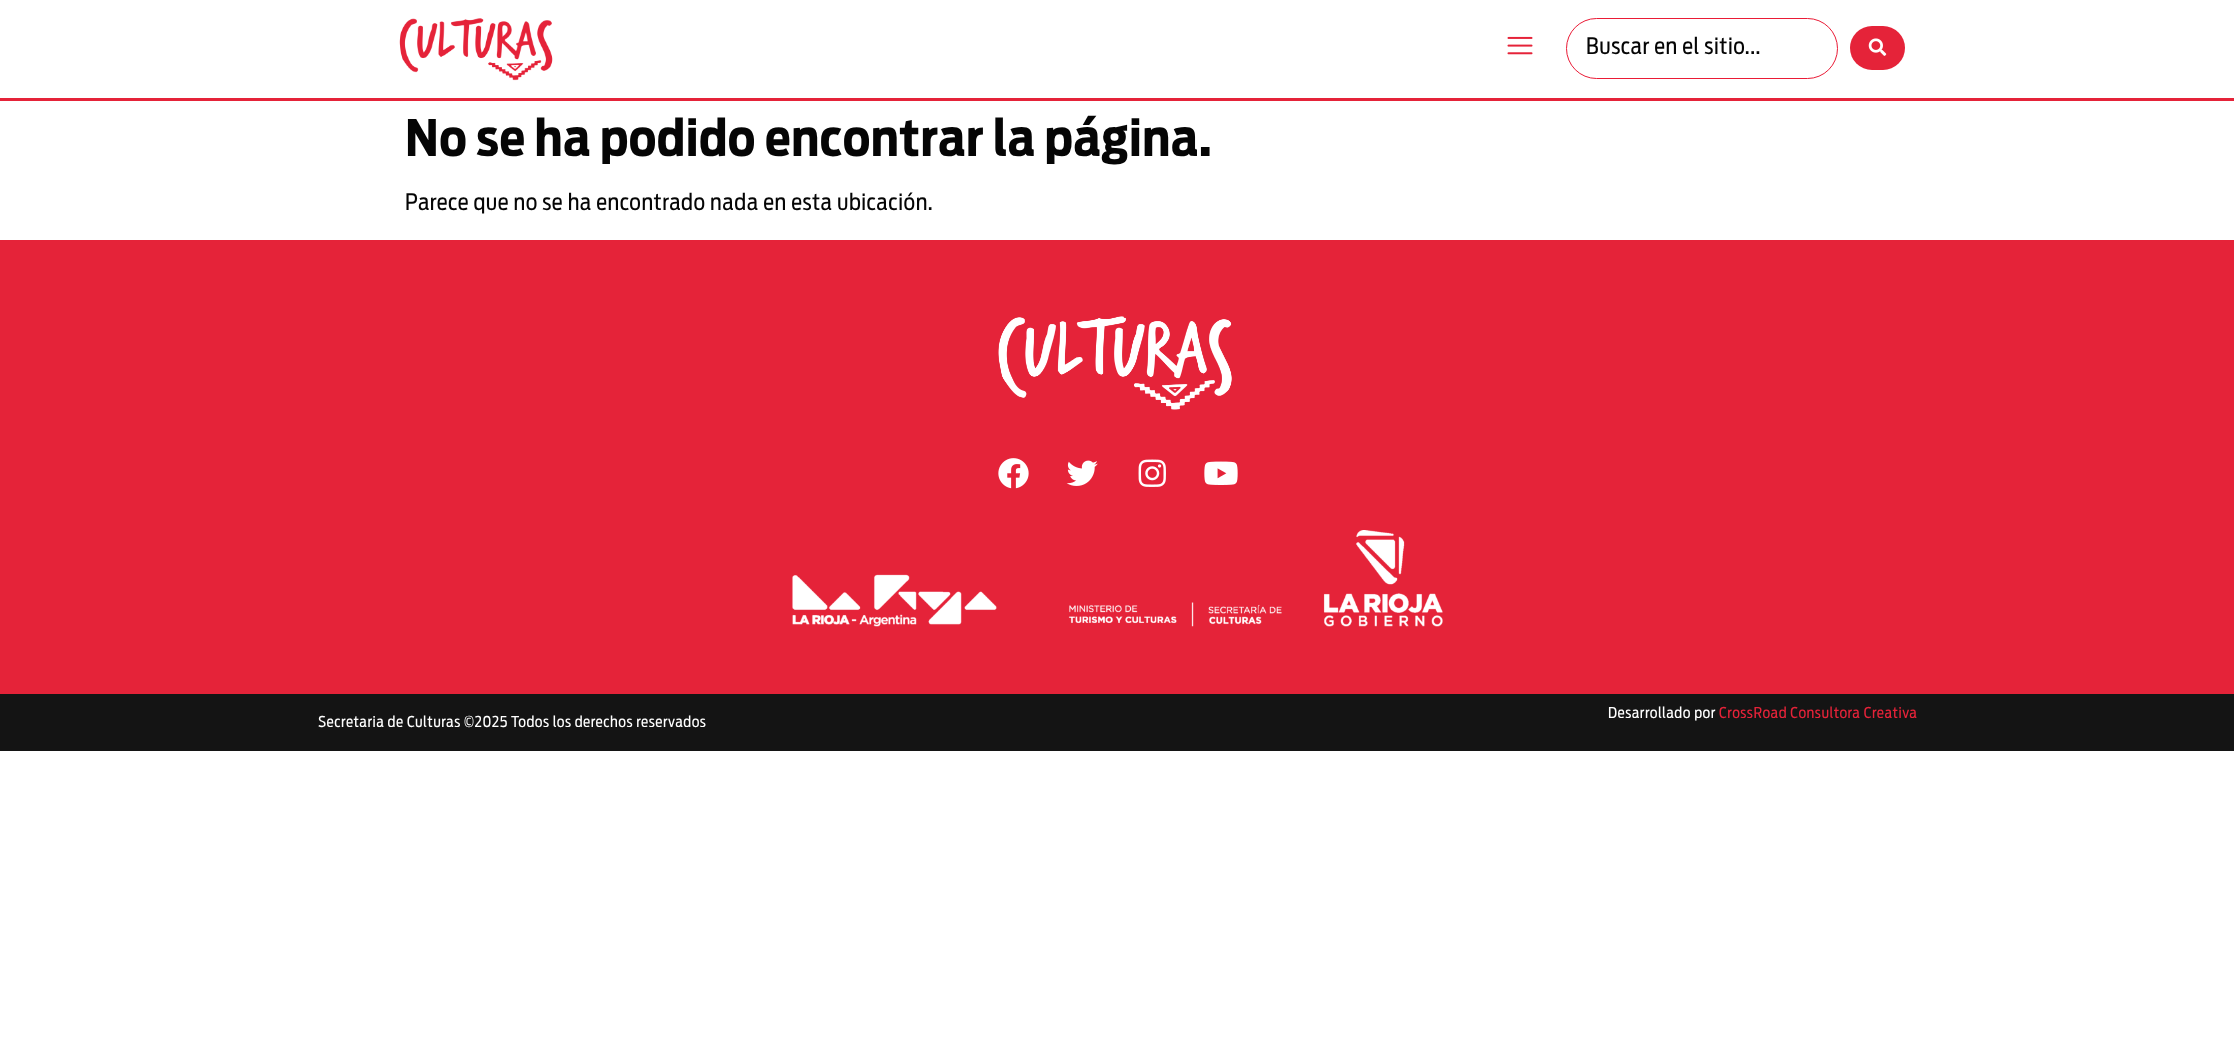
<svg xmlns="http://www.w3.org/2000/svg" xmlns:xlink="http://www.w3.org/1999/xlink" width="2234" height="1058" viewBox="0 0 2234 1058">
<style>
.cls-1{font:22.5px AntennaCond;letter-spacing:0.5px;fill:#050505}
.cls-2{font:bold 50px AntennaCond;letter-spacing:0.5px;fill:#050505}
.cls-3{font:15px AntennaCond;letter-spacing:0.5px;fill:#ffffff}
.cls-4{font:15px AntennaCond;letter-spacing:0.5px;fill:#e52339}
</style>
<rect width="100%" height="100%" fill="#ffffff"/>
<rect fill="#e52339" x="0" y="98" width="2234" height="3"/>
<image xlink:href="image0.png" x="399" y="18" width="154" height="63"/>
<image xlink:href="image1.png" x="1507" y="36" width="26" height="19"/>
<rect fill="none" stroke="#ea1b36" x="1566.5" y="18.5" width="271" height="60" rx="30"/>
<rect fill="#e52339" x="1850" y="26" width="55" height="44" rx="22"/>
<image xlink:href="image2.png" x="1868" y="38" width="19" height="18"/>
<rect fill="#e52339" x="0" y="240" width="2234" height="454"/>
<image xlink:href="image3.png" x="998" y="316" width="234" height="94"/>
<image xlink:href="image4.png" x="998" y="458" width="31" height="31"/>
<image xlink:href="image5.png" x="1066" y="460" width="32" height="26"/>
<image xlink:href="image6.png" x="1138" y="459" width="28" height="28"/>
<image xlink:href="image7.png" x="1204" y="461" width="34" height="24"/>
<image xlink:href="image8.png" x="792" y="530" width="651" height="97"/>
<rect fill="#141414" x="0" y="694" width="2234" height="57"/>
<text class="cls-1" x="1586" y="54">Buscar en el sitio...</text>
<text class="cls-2" x="405" y="156">No se ha podido encontrar la página.</text>
<text class="cls-1" x="405" y="210">Parece que no se ha encontrado nada en esta ubicación.</text>
<text class="cls-3" x="318" y="727">Secretaria de Culturas ©2025 Todos los derechos reservados</text>
<text class="cls-3" x="1608" y="718">Desarrollado por</text>
<text class="cls-4" x="1719" y="718">CrossRoad Consultora Creativa</text>
</svg>
